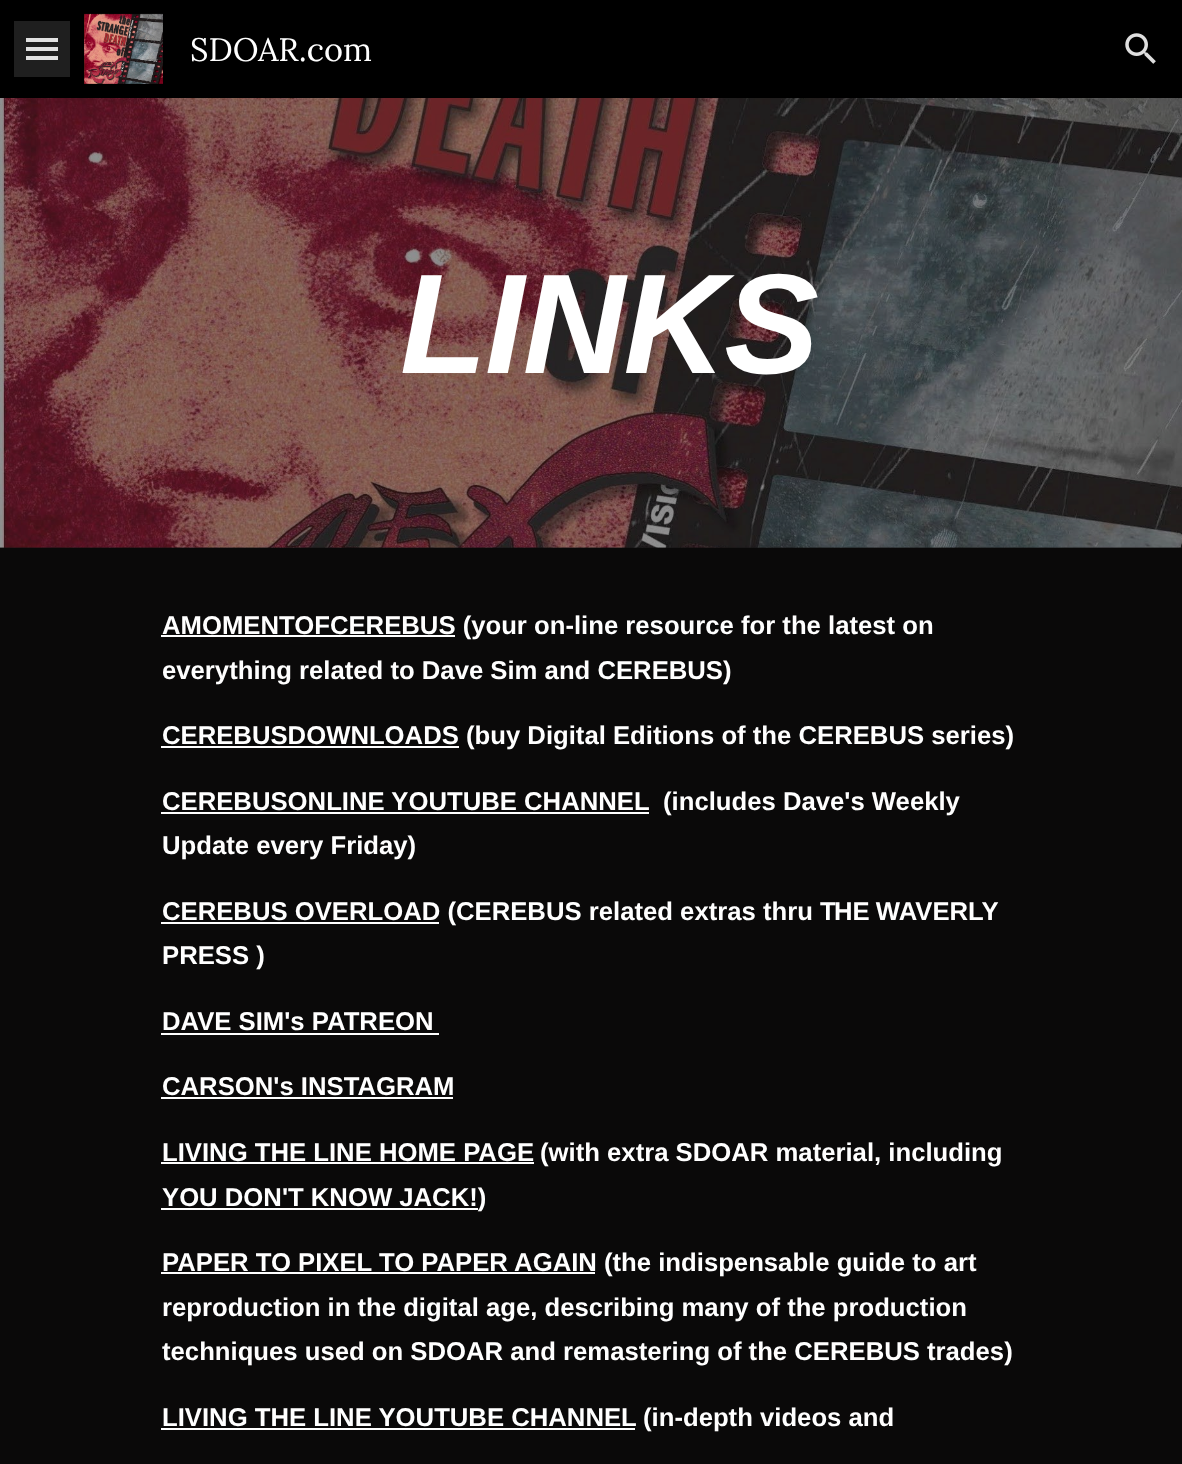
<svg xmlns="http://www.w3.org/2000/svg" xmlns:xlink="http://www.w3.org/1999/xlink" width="1182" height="1464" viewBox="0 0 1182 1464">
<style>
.cls-1{font:32.5px Lora;fill:#ffffff}
.cls-2{font:italic bold 142px Liberation Sans;letter-spacing:-1.75px;fill:#ffffff}
.cls-3{font:bold 25.7px Liberation Sans;fill:#ffffff}
</style>
<rect width="100%" height="100%" fill="#161515"/>
<rect fill="#000000" x="0" y="0" width="1182" height="98"/>
<rect fill="#dfdfdf" x="26" y="38" width="32" height="4"/>
<rect fill="#dfdfdf" x="26" y="47" width="32" height="4"/>
<rect fill="#dfdfdf" x="26" y="56" width="32" height="4"/>
<rect fill="#ffffff" fill-opacity="0.12" x="14" y="21" width="56" height="56"/>
<image xlink:href="image0.png" x="84" y="13" width="79" height="71"/>
<image xlink:href="image1.png" x="1125" y="33" width="31" height="31"/>
<image xlink:href="image2.png" x="0" y="98" width="1182" height="450"/>
<rect fill="#0a0909" x="0" y="548" width="1182" height="916"/>
<rect fill="#ffffff" x="161" y="635" width="294" height="2"/>
<rect fill="#ffffff" x="161" y="746" width="298" height="2"/>
<rect fill="#ffffff" x="161" y="812" width="488" height="2"/>
<rect fill="#ffffff" x="161" y="922" width="278" height="2"/>
<rect fill="#ffffff" x="161" y="1033" width="278" height="2"/>
<rect fill="#ffffff" x="161" y="1097" width="292" height="2"/>
<rect fill="#ffffff" x="161" y="1162" width="373" height="2"/>
<rect fill="#ffffff" x="161" y="1208" width="317" height="2"/>
<rect fill="#ffffff" x="161" y="1272" width="434" height="2"/>
<rect fill="#ffffff" x="161" y="1428" width="474" height="2"/>
<text class="cls-1" x="190" y="61">SDOAR.com</text>
<text class="cls-2" x="400" y="373">LINKS</text>
<text class="cls-3"><tspan x="162" y="634">AMOMENTOFCEREBUS (your on-line resource for the latest on</tspan><tspan x="162" y="679">everything related to Dave Sim and CEREBUS)</tspan></text>
<text class="cls-3" x="162" y="744">CEREBUSDOWNLOADS (buy Digital Editions of the CEREBUS series)</text>
<text class="cls-3" x="162" y="810">CEREBUSONLINE YOUTUBE CHANNEL</text>
<text class="cls-3" x="663" y="810">(includes Dave's Weekly</text>
<text class="cls-3" x="162" y="854">Update every Friday)</text>
<text class="cls-3" x="162" y="920">CEREBUS OVERLOAD (CEREBUS related extras thru T</text>
<text class="cls-3" x="834" y="920" word-spacing="-1">HE WAVERLY</text>
<text class="cls-3" x="162" y="964">PRESS )</text>
<text class="cls-3" x="162" y="1030">DAVE SIM's PATREON</text>
<text class="cls-3" x="162" y="1095">CARSON's INSTAGRAM</text>
<text class="cls-3" x="162" y="1161">LIVING THE LINE HOME PAGE</text>
<text class="cls-3" x="540" y="1161">(with extra SDOAR material, including</text>
<text class="cls-3" x="162" y="1206">YOU DON'T KNOW JACK!)</text>
<text class="cls-3"><tspan x="162" y="1271">PAPER TO PIXEL TO PAPER AGAIN (the indispensable guide to art</tspan><tspan x="162" y="1316">reproduction in the digital age, describing many of the production</tspan><tspan x="162" y="1360">techniques used on SDOAR and remastering of the CEREBUS trades)</tspan></text>
<text class="cls-3" x="162" y="1426">LIVING THE LINE YOUTUBE CHANNEL</text>
<text class="cls-3" x="643" y="1426">(in-depth videos and</text>
</svg>
